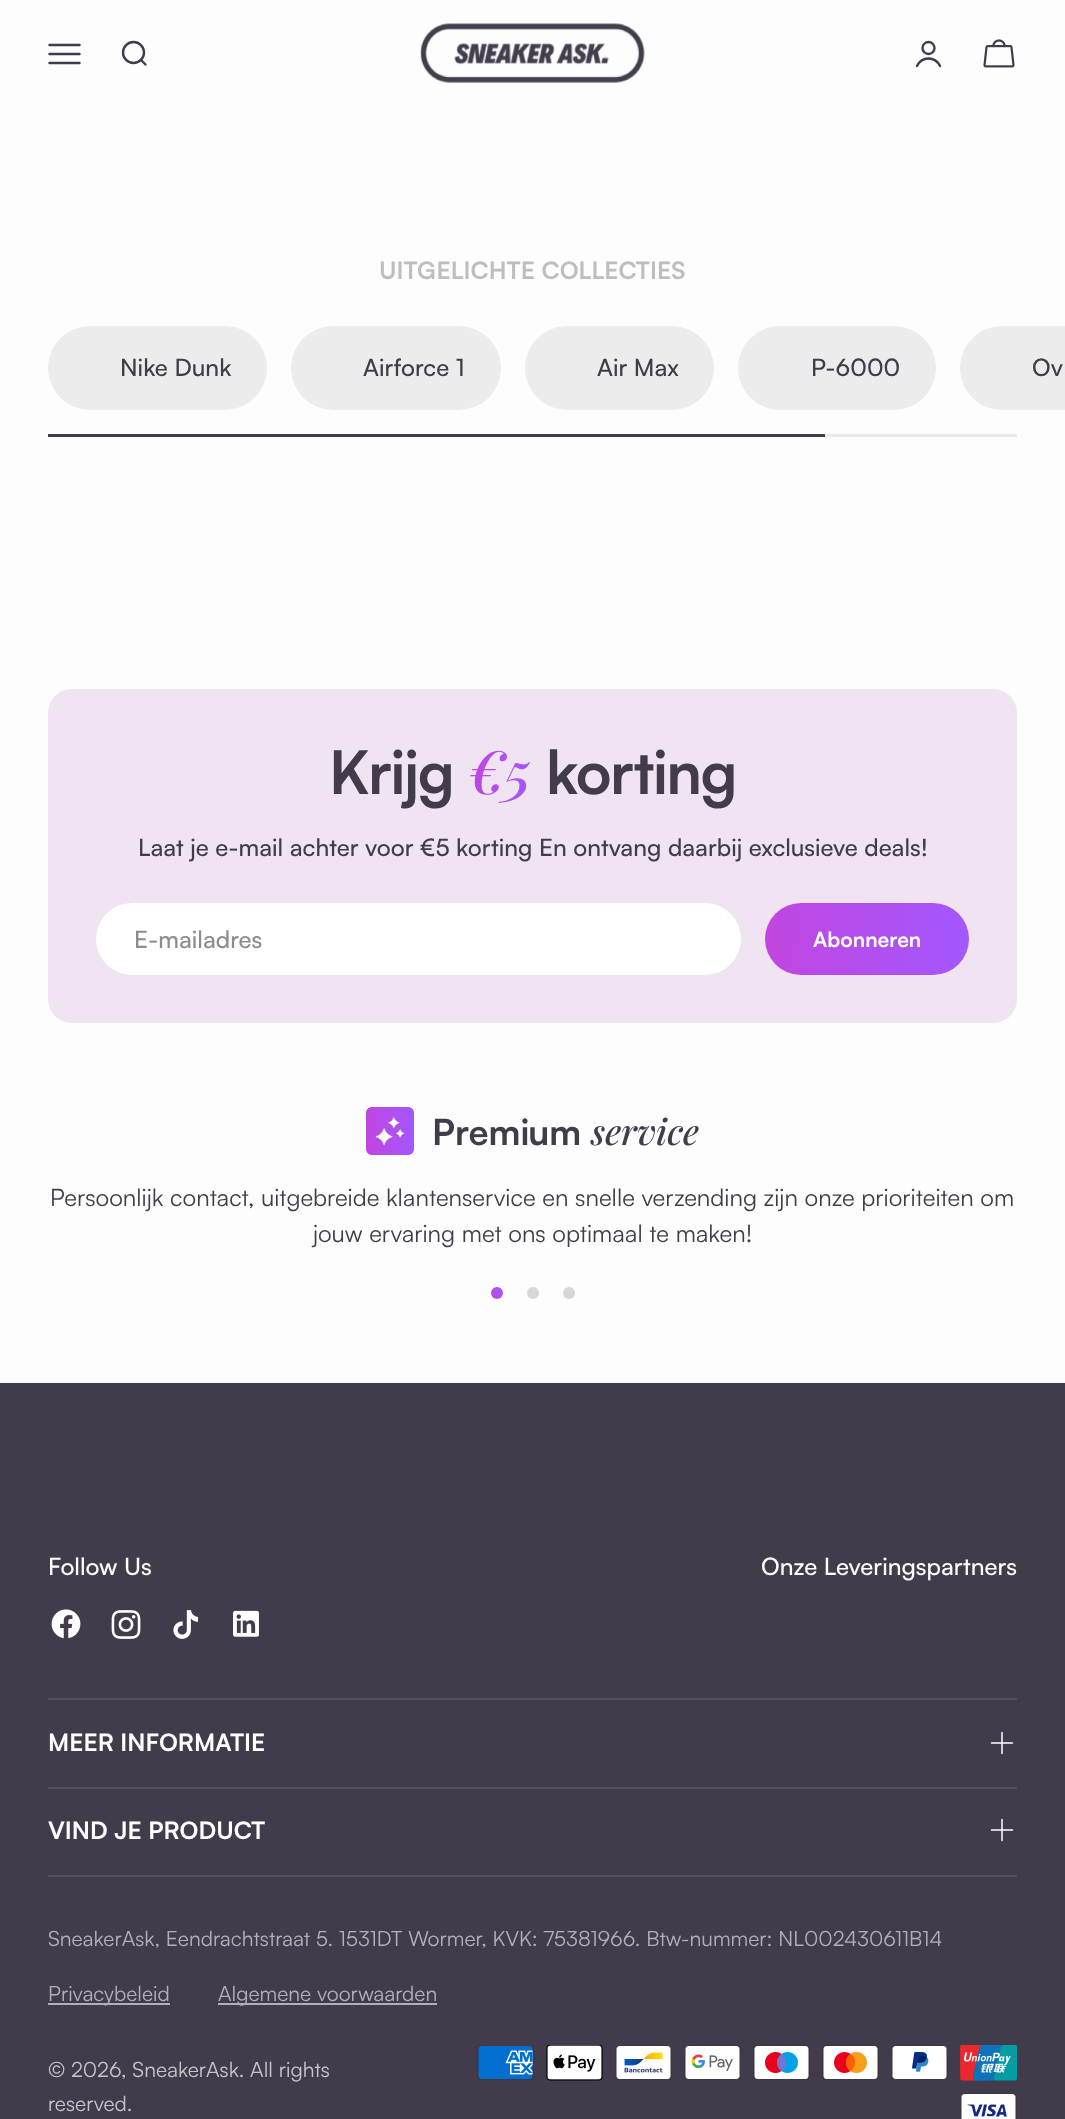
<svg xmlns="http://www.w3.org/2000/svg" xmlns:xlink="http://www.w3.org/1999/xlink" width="1065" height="2119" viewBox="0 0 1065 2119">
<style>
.cls-1{font:bold 24px Satoshi;fill:#bfbdc2}
.cls-2{font:500 24px Satoshi;fill:#423b4b}
.cls-3{font:bold 60px Satoshi;letter-spacing:-1.25px;fill:#423b4b}
.cls-4{font:italic 500 60px Playfair Display;letter-spacing:-1.25px;fill:url(#g1)}
.cls-5{font:500 24px Satoshi;fill:#8e8993}
.cls-6{font:bold 21px Satoshi;fill:#ffffff}
.cls-7{font:bold 36px Satoshi;fill:#423b4b}
.cls-8{font:italic 500 36px Playfair Display;fill:#423b4b}
.cls-9{font:24px Satoshi;fill:#423b4b}
.cls-10{font:500 24px Satoshi;fill:#ffffff}
.cls-11{font:bold 24px Satoshi;fill:#ffffff}
.cls-12{font:21px Satoshi;fill:#b2afb6}
.cls-13{font:21px Satoshi;fill:#c6c4c9}
</style>
<defs>
<linearGradient id="g1" gradientUnits="userSpaceOnUse" x1="466" y1="771" x2="533" y2="768"><stop offset="0.03" stop-color="#c146df"/><stop offset="0.97" stop-color="#a357ff"/></linearGradient>
<linearGradient id="g2" gradientUnits="userSpaceOnUse" x1="763" y1="945" x2="971" y2="933"><stop offset="0.03" stop-color="#c146df"/><stop offset="0.97" stop-color="#a357ff"/></linearGradient>
<linearGradient id="g3" gradientUnits="userSpaceOnUse" x1="503" y1="1293" x2="490" y2="1293"><stop offset="0.03" stop-color="#a357ff"/><stop offset="0.97" stop-color="#c146df"/></linearGradient>
</defs>
<rect width="100%" height="100%" fill="#fdfdfd"/>
<path fill="none" stroke="#423b4b" stroke-width="2.4" stroke-linecap="round" d="M49.5 45H79.5M49.5 54H79.5M49.5 63H79.5"/>
<circle fill="none" stroke="#423b4b" stroke-width="2.4" cx="133.5" cy="52.5" r="10.5"/>
<path fill="none" stroke="#423b4b" stroke-width="2.4" stroke-linecap="round" stroke-linejoin="round" d="M141 60L145.5 64.5"/>
<image xlink:href="image0.png" x="420" y="23" width="225" height="60"/>
<circle fill="none" stroke="#423b4b" stroke-width="2.4" cx="928.5" cy="48" r="6"/>
<path fill="none" stroke="#423b4b" stroke-width="2.4" stroke-linecap="round" d="M917 66C922 56 935 56 940 66"/>
<image xlink:href="image1.png" x="983" y="39" width="32" height="29"/>
<rect fill="#ececec" x="48" y="326" width="219" height="84" rx="42"/>
<rect fill="#ececec" x="291" y="326" width="210" height="84" rx="42"/>
<rect fill="#ececec" x="525" y="326" width="189" height="84" rx="42"/>
<rect fill="#ececec" x="738" y="326" width="198" height="84" rx="42"/>
<path fill="#ececec" d="M1002 326H1065V410H1002C979 410 960 391 960 368C960 345 979 326 1002 326Z"/>
<rect fill="#eaeaeb" x="825" y="434" width="192" height="3"/>
<rect fill="#423b4b" x="48" y="434" width="777" height="3"/>
<rect fill="#f0e4f3" x="48" y="689" width="969" height="334" rx="24"/>
<rect fill="#ffffff" x="96" y="903" width="645" height="72" rx="36"/>
<rect fill="url(#g2)" x="765" y="903" width="204" height="72" rx="36"/>
<image xlink:href="image2.png" x="366" y="1107" width="48" height="48"/>
<circle fill="url(#g3)" cx="497" cy="1293" r="6"/>
<circle fill="#d8d6d9" cx="533" cy="1293" r="6"/>
<circle fill="#d8d6d9" cx="569" cy="1293" r="6"/>
<rect fill="#423b4b" x="0" y="1383" width="1065" height="736"/>
<image xlink:href="image3.png" x="51" y="1609" width="30" height="30"/>
<image xlink:href="image4.png" x="111" y="1610" width="30" height="29"/>
<image xlink:href="image5.png" x="173" y="1610" width="26" height="29"/>
<image xlink:href="image6.png" x="233" y="1610" width="26" height="27"/>
<rect fill="#554e5d" x="48" y="1698" width="969" height="2"/>
<path fill="none" stroke="#ffffff" stroke-width="1.5" stroke-linecap="round" stroke-linejoin="round" d="M1012.5 1743H991.5M1002 1753.5V1732.5"/>
<rect fill="#554e5d" x="48" y="1787" width="969" height="2"/>
<rect fill="#554e5d" x="48" y="1875" width="969" height="2"/>
<path fill="none" stroke="#ffffff" stroke-width="1.5" stroke-linecap="round" stroke-linejoin="round" d="M1012.5 1830H991.5M1002 1840.5V1819.5"/>
<rect fill="#b2afb6" x="48" y="2003" width="122" height="2"/>
<rect fill="#b2afb6" x="218" y="2003" width="219" height="2"/>
<image xlink:href="image7.png" x="477" y="2045" width="57" height="35"/>
<image xlink:href="image8.png" x="546" y="2045" width="57" height="36"/>
<image xlink:href="image9.png" x="615" y="2045" width="57" height="35"/>
<image xlink:href="image10.png" x="684" y="2045" width="57" height="35"/>
<image xlink:href="image11.png" x="753" y="2045" width="57" height="35"/>
<image xlink:href="image12.png" x="822" y="2045" width="57" height="35"/>
<image xlink:href="image13.png" x="891" y="2045" width="57" height="35"/>
<image xlink:href="image14.png" x="960" y="2045" width="57" height="36"/>
<image xlink:href="image15.png" x="960" y="2093" width="57" height="26"/>
<text class="cls-1" x="379" y="279">UITGELICHTE COLLECTIES</text>
<text class="cls-2" x="120" y="376">Nike Dunk</text>
<text class="cls-2" x="363" y="376">Airforce 1</text>
<text class="cls-2" x="597" y="376">Air Max</text>
<text class="cls-2" x="811" y="376">P-6000</text>
<text class="cls-2" x="1032" y="376">Ov</text>
<text class="cls-3" x="329" y="794">Krijg</text>
<text class="cls-4" x="468" y="794">€5</text>
<text class="cls-3" x="546" y="794">korting</text>
<text class="cls-2" x="138" y="856">Laat je e-mail achter voor €5 korting En ontvang daarbij exclusieve deals!</text>
<text class="cls-5" x="134" y="948">E-mailadres</text>
<text class="cls-6" x="813" y="947">Abonneren</text>
<text class="cls-7" x="432" y="1145">Premium</text>
<text class="cls-8" x="591" y="1145">service</text>
<text class="cls-9" x="50" y="1206">Persoonlijk contact, uitgebreide klantenservice en snelle verzending zijn onze prioriteiten om</text>
<text class="cls-9" x="313" y="1242">jouw ervaring met ons optimaal te maken!</text>
<text class="cls-10" x="48" y="1575">Follow Us</text>
<text class="cls-10" x="761" y="1575">Onze Leveringspartners</text>
<text class="cls-11" x="48" y="1751">MEER INFORMATIE</text>
<text class="cls-11" x="48" y="1839">VIND JE PRODUCT</text>
<text class="cls-12" x="48" y="1946">SneakerAsk, Eendrachtstraat 5. 1531DT Wormer, KVK: 75381966. Btw-nummer: NL002430611B14</text>
<text class="cls-12" x="48" y="2001">Privacybeleid</text>
<text class="cls-12" x="218" y="2001">Algemene voorwaarden</text>
<text class="cls-13"><tspan x="48" y="2077">© 2026, SneakerAsk. All rights</tspan><tspan x="48" y="2111">reserved.</tspan></text>
</svg>
